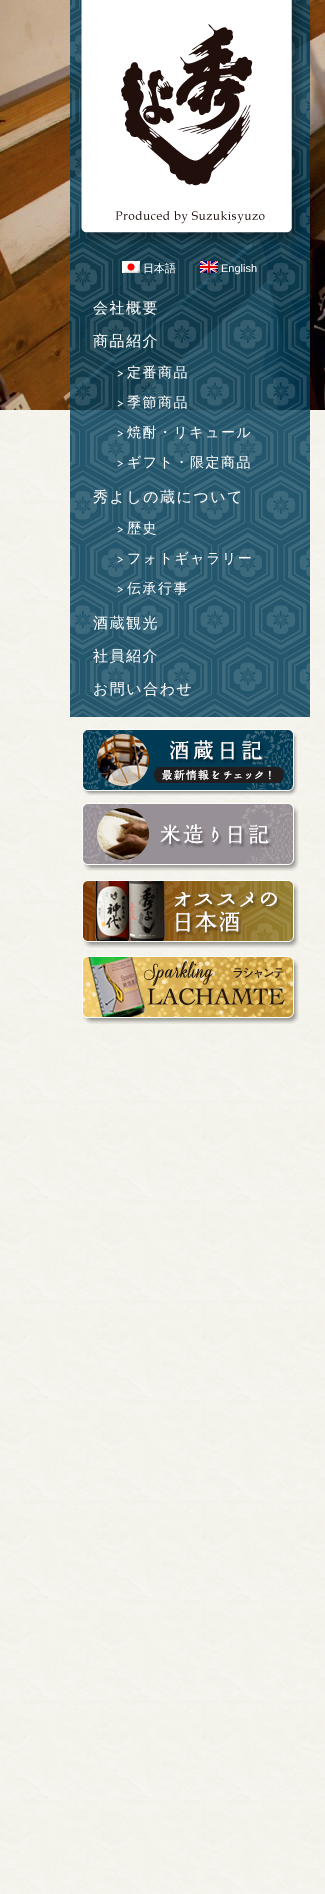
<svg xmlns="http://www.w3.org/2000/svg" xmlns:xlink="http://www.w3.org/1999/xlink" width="325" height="1894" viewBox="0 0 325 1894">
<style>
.cls-1{font:500 11px WenQuanYi Zen Hei;fill:#ffffff}
.cls-2{font:11px Liberation Sans;fill:#ffffff}
.cls-3{font:500 15px WenQuanYi Zen Hei;letter-spacing:1.5px;fill:#ffffff}
.cls-4{font:500 14px WenQuanYi Zen Hei;letter-spacing:1.5px;fill:#ffffff}
</style>
<rect width="100%" height="100%" fill="#ffffff"/>
<image xlink:href="image0.png" x="0" y="410" width="325" height="1484"/>
<image xlink:href="image1.png" x="0" y="0" width="325" height="410"/>
<image xlink:href="image2.png" x="70" y="0" width="240" height="717"/>
<image xlink:href="image3.png" x="80" y="0" width="223" height="244"/>
<image xlink:href="image4.png" x="122" y="261" width="18" height="12"/>
<image xlink:href="image5.png" x="200" y="261" width="18" height="12"/>
<image xlink:href="image6.png" x="117" y="370" width="7" height="7"/>
<image xlink:href="image7.png" x="117" y="400" width="7" height="7"/>
<image xlink:href="image8.png" x="117" y="430" width="7" height="7"/>
<image xlink:href="image9.png" x="117" y="460" width="7" height="7"/>
<image xlink:href="image10.png" x="117" y="526" width="7" height="7"/>
<image xlink:href="image11.png" x="117" y="556" width="7" height="7"/>
<image xlink:href="image12.png" x="117" y="586" width="7" height="7"/>
<image xlink:href="image13.png" x="82" y="729" width="216" height="67"/>
<image xlink:href="image14.png" x="82" y="803" width="217" height="68"/>
<image xlink:href="image15.png" x="82" y="880" width="217" height="68"/>
<image xlink:href="image16.png" x="82" y="956" width="217" height="68"/>
<text class="cls-1" x="143" y="272">日本語</text>
<text class="cls-2" x="221" y="272">English</text>
<text class="cls-3" x="93" y="313">会社概要</text>
<text class="cls-3" x="93" y="346">商品紹介</text>
<text class="cls-4" x="127" y="377">定番商品</text>
<text class="cls-4" x="127" y="407">季節商品</text>
<text class="cls-4" x="127" y="437">焼酎・リキュール</text>
<text class="cls-4" x="127" y="467">ギフト・限定商品</text>
<text class="cls-3" x="93" y="502">秀よしの蔵について</text>
<text class="cls-4" x="127" y="533">歴史</text>
<text class="cls-4" x="127" y="563">フォトギャラリー</text>
<text class="cls-4" x="127" y="593">伝承行事</text>
<text class="cls-3" x="93" y="628">酒蔵観光</text>
<text class="cls-3" x="93" y="661">社員紹介</text>
<text class="cls-3" x="93" y="694">お問い合わせ</text>
</svg>
